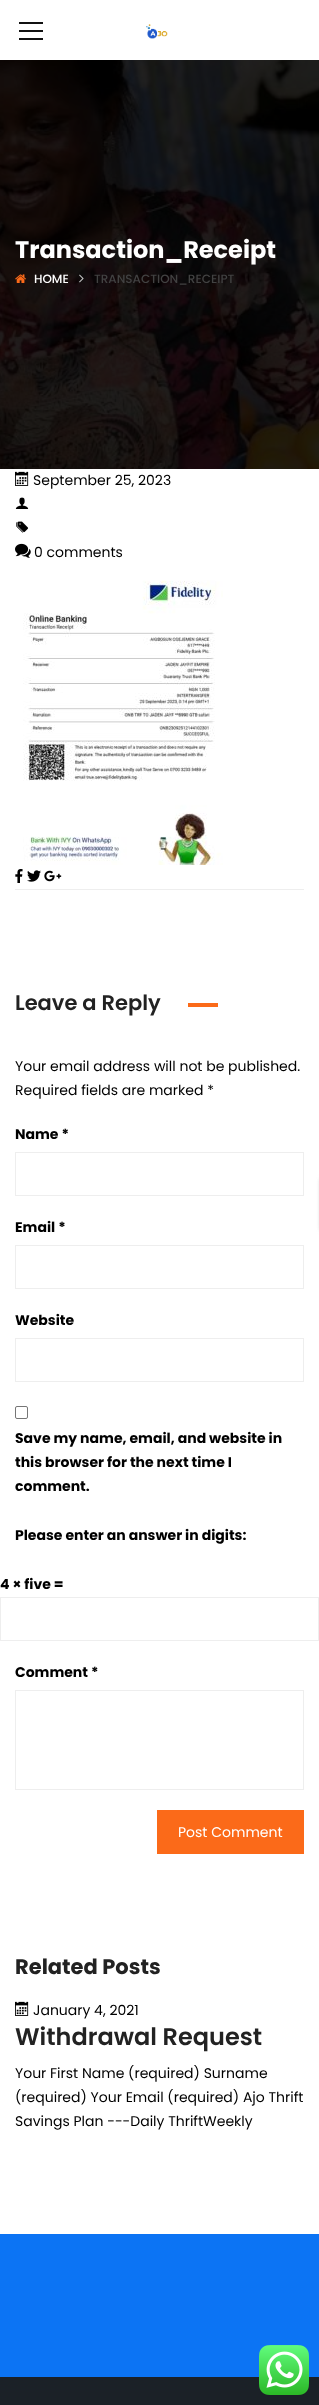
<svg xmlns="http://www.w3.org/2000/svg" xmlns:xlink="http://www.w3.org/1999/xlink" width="319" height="2405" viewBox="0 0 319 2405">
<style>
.cls-1{font:bold 24px Poppins;fill:#ffffff}
.cls-2{font:500 12px Poppins;fill:#ffffff}
.cls-3{font:500 12px Poppins;fill:#424242}
.cls-4{font:14px Poppins;fill:#000000}
.cls-5{font:600 21px Poppins;fill:#222222}
.cls-6{font:bold 14px Poppins;fill:#000000}
.cls-7{font:14px Poppins;fill:#ffffff}
.cls-8{font:bold 21px Poppins;fill:#222222}
.cls-9{font:600 24px Poppins;fill:#222222}
</style>
<rect width="100%" height="100%" fill="#ffffff"/>
<rect fill="#111111" x="19" y="22" width="24" height="2"/>
<rect fill="#111111" x="19" y="30" width="24" height="2"/>
<rect fill="#111111" x="19" y="38" width="24" height="2"/>
<image xlink:href="image0.png" x="146" y="24" width="22" height="15"/>
<image xlink:href="image1.png" x="0" y="60" width="319" height="409"/>
<image xlink:href="image2.png" x="15" y="274" width="11" height="9"/>
<image xlink:href="image3.png" x="79" y="274" width="5" height="9"/>
<image xlink:href="image4.png" x="15" y="471" width="14" height="15"/>
<image xlink:href="image5.png" x="15" y="497" width="14" height="12"/>
<image xlink:href="image6.png" x="16" y="521" width="13" height="12"/>
<image xlink:href="image7.png" x="15" y="543" width="16" height="15"/>
<image xlink:href="image8.png" x="23" y="580" width="200" height="285"/>
<image xlink:href="image9.png" x="15" y="869" width="8" height="14"/>
<image xlink:href="image10.png" x="27" y="870" width="14" height="12"/>
<image xlink:href="image11.png" x="44" y="870" width="18" height="12"/>
<rect fill="#eeeeee" x="15" y="889" width="289" height="1"/>
<rect fill="#fb6a19" x="188" y="1003" width="30" height="4"/>
<rect fill="none" stroke="#eeeeee" x="15.5" y="1152.5" width="288" height="43"/>
<rect fill="none" stroke="#eeeeee" x="15.5" y="1245.5" width="288" height="43"/>
<rect fill="none" stroke="#eeeeee" x="15.5" y="1338.5" width="288" height="43"/>
<rect fill="none" stroke="#767676" x="15.5" y="1406.5" width="12" height="12" rx="1.5"/>
<rect fill="none" stroke="#eeeeee" x="0.5" y="1597.5" width="318" height="43"/>
<rect fill="none" stroke="#eeeeee" x="15.5" y="1690.5" width="288" height="99"/>
<rect fill="#fb6a19" x="157" y="1810" width="147" height="44"/>
<image xlink:href="image4.png" x="15" y="2001" width="14" height="15"/>
<rect fill="#0c74f4" x="0" y="2234" width="319" height="143"/>
<rect fill="#1b2127" x="0" y="2377" width="319" height="28"/>
<rect fill="#777777" filter="blur(2.5px)" x="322" y="1179" width="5" height="51"/>
<image xlink:href="image12.png" x="259" y="2345" width="50" height="50"/>
<text class="cls-1" x="15" y="258">Transaction_Receipt</text>
<text class="cls-2" x="34" y="283">HOME</text>
<text class="cls-3" x="94" y="283">TRANSACTION_RECEIPT</text>
<text class="cls-4" x="33" y="485">September 25, 2023</text>
<text class="cls-4" x="34" y="557">0 comments</text>
<text class="cls-5" x="15" y="1010">Leave a Reply</text>
<text class="cls-4"><tspan x="15" y="1071">Your email address will not be published.</tspan><tspan x="15" y="1095">Required fields are marked *</tspan></text>
<text class="cls-6" x="15" y="1139">Name *</text>
<text class="cls-6" x="15" y="1232">Email *</text>
<text class="cls-6" x="15" y="1325">Website</text>
<text class="cls-6"><tspan x="15" y="1443">Save my name, email, and website in</tspan><tspan x="15" y="1467">this browser for the next time I</tspan><tspan x="15" y="1491">comment.</tspan></text>
<text class="cls-6" x="15" y="1540">Please enter an answer in digits:</text>
<text class="cls-6" x="0" y="1589">4 × five =</text>
<text class="cls-6" x="15" y="1677">Comment *</text>
<text class="cls-7" x="178" y="1837">Post Comment</text>
<text class="cls-8" x="15" y="1974">Related Posts</text>
<text class="cls-4" x="33" y="2015">January 4, 2021</text>
<text class="cls-9" x="15" y="2045">Withdrawal Request</text>
<text class="cls-4"><tspan x="15" y="2078">Your First Name (required) Surname</tspan><tspan x="15" y="2102">(required) Your Email (required) Ajo Thrift</tspan><tspan x="15" y="2126">Savings Plan ---Daily ThriftWeekly</tspan></text>
</svg>
